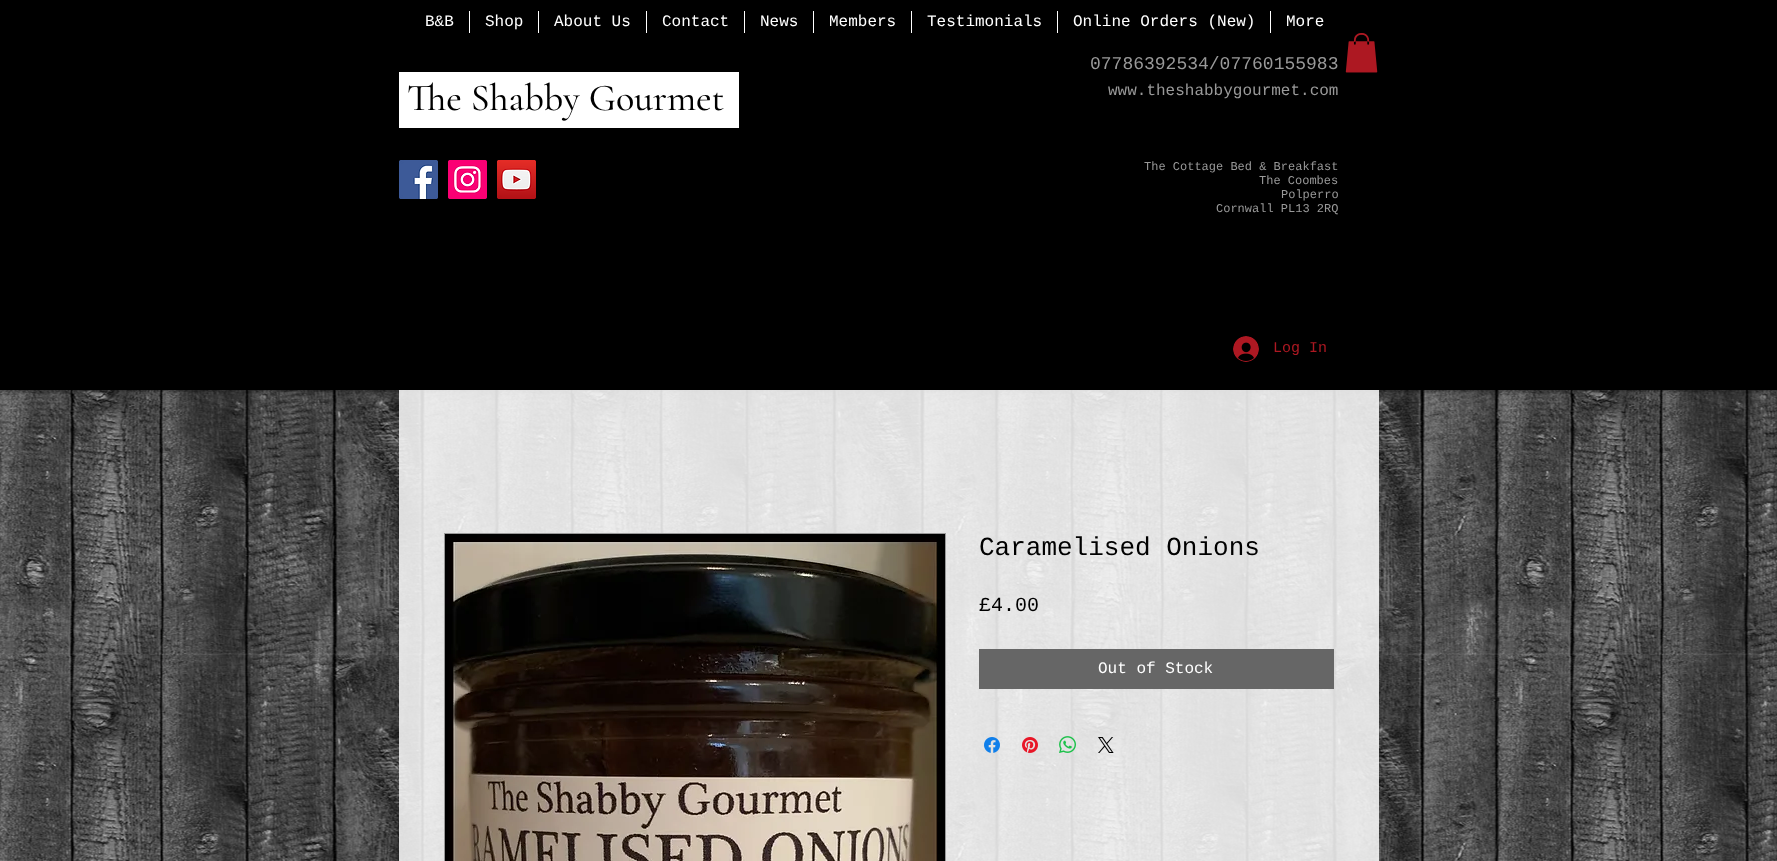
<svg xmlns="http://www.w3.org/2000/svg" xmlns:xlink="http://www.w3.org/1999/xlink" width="1777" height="861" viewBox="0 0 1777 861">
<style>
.cls-1{font:16px Liberation Mono;fill:#ffffff}
.cls-2{font:18px Liberation Mono;fill:#999999}
.cls-3{font:500 38px Cormorant Garamond;fill:#000000}
.cls-4{font:16px Liberation Mono;fill:#999999}
.cls-5{font:12px Liberation Mono;fill:#999999}
.cls-6{font:15px Liberation Mono;fill:#ad1822}
.cls-7{font:26px Liberation Mono;fill:#000000}
.cls-8{font:20px Liberation Mono;fill:#000000}
</style>
<rect width="100%" height="100%" fill="#ffffff"/>
<image xlink:href="image10.png" x="0" y="390" width="1777" height="471"/>
<rect fill="#000000" fill-opacity="0.7" filter="blur(2.5px)" x="0" y="0" width="1777" height="390"/>
<rect fill="#000000" x="0" y="0" width="1777" height="390"/>
<rect fill="#ffffff" x="469" y="11" width="1" height="22"/>
<rect fill="#ffffff" x="538" y="11" width="1" height="22"/>
<rect fill="#ffffff" x="646" y="11" width="1" height="22"/>
<rect fill="#ffffff" x="744" y="11" width="1" height="22"/>
<rect fill="#ffffff" x="813" y="11" width="1" height="22"/>
<rect fill="#ffffff" x="911" y="11" width="1" height="22"/>
<rect fill="#ffffff" x="1057" y="11" width="1" height="22"/>
<rect fill="#ffffff" x="1270" y="11" width="1" height="22"/>
<image xlink:href="image0.png" x="1345" y="33" width="33" height="40"/>
<rect fill="#ffffff" x="399" y="72" width="340" height="56"/>
<image xlink:href="image1.png" x="399" y="160" width="39" height="39"/>
<image xlink:href="image2.png" x="448" y="160" width="39" height="39"/>
<image xlink:href="image3.png" x="497" y="160" width="39" height="39"/>
<image xlink:href="image4.png" x="1233" y="336" width="26" height="26"/>
<rect fill="#ffffff" fill-opacity="0.85" x="399" y="390" width="980" height="471"/>
<rect fill="none" stroke="#999999" x="444.5" y="533.5" width="501" height="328"/>
<image xlink:href="image5.png" x="445" y="534" width="500" height="327"/>
<rect fill="#666666" x="979" y="649" width="355" height="40"/>
<image xlink:href="image6.png" x="984" y="737" width="16" height="16"/>
<image xlink:href="image7.png" x="1022" y="737" width="16" height="16"/>
<image xlink:href="image8.png" x="1059" y="736" width="17" height="17"/>
<image xlink:href="image9.png" x="1098" y="737" width="16" height="16"/>
<text class="cls-1" x="425" y="26">B&amp;B</text>
<text class="cls-1" x="485" y="26">Shop</text>
<text class="cls-1" x="554" y="26">About Us</text>
<text class="cls-1" x="662" y="26">Contact</text>
<text class="cls-1" x="760" y="26">News</text>
<text class="cls-1" x="829" y="26">Members</text>
<text class="cls-1" x="927" y="26">Testimonials</text>
<text class="cls-1" x="1073" y="26">Online Orders (New)</text>
<text class="cls-1" x="1286" y="26">More</text>
<text class="cls-2" x="1090" y="69">07786392534/07760155983</text>
<text class="cls-3" x="407" y="110">The Shabby Gourmet</text>
<text class="cls-4" x="1108" y="95">www.theshabbygourmet.com</text>
<text class="cls-5" x="1144" y="170">The Cottage Bed &amp; Breakfast</text>
<text class="cls-5" x="1259" y="184">The Coombes</text>
<text class="cls-5" x="1281" y="198">Polperro</text>
<text class="cls-5" x="1216" y="212">Cornwall PL13 2RQ</text>
<text class="cls-6" x="1273" y="352">Log In</text>
<text class="cls-7" x="979" y="555">Caramelised Onions</text>
<text class="cls-8" x="979" y="611">£4.00</text>
<text class="cls-1" x="1098" y="673">Out of Stock</text>
</svg>
